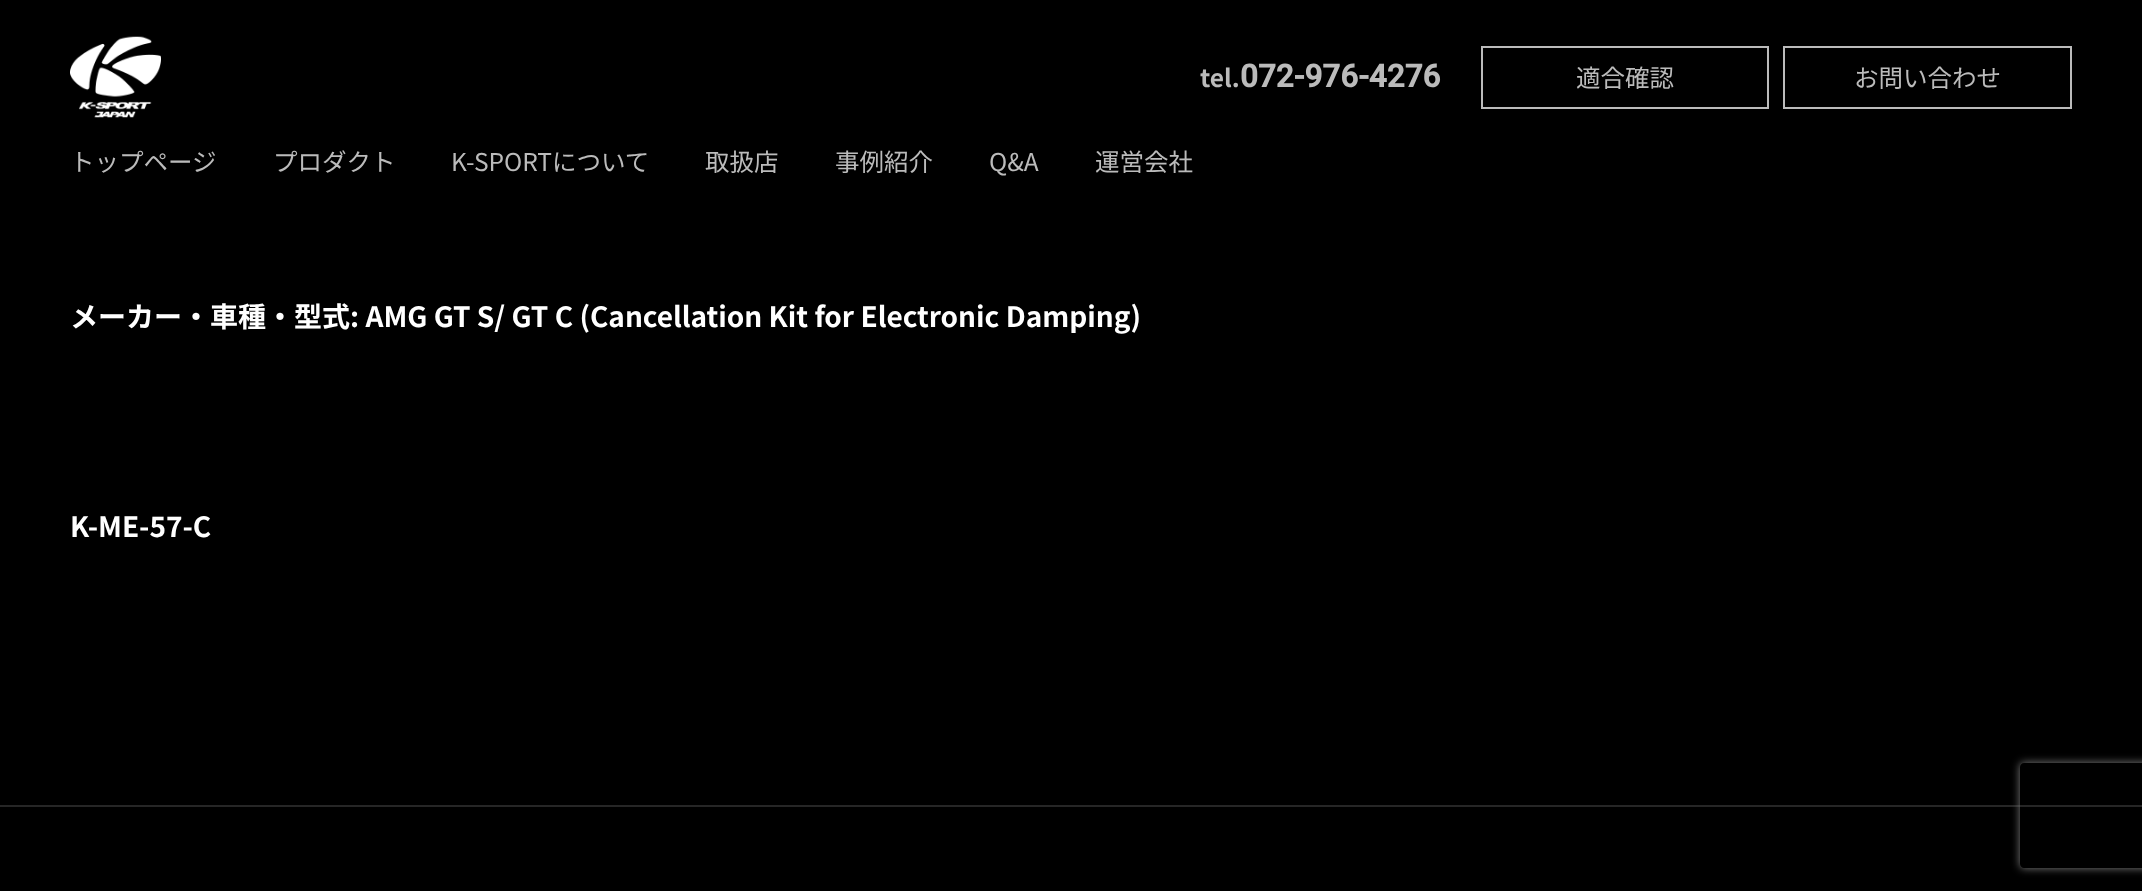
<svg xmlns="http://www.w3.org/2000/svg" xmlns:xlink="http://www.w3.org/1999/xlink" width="2142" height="891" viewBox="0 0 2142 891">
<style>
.cls-1{font:bold 24.5px Noto Sans JP;fill:#bbbbbb}
.cls-2{font:bold 31.5px Roboto;fill:#bbbbbb}
.cls-3{font:24.5px Noto Sans JP;fill:#bbbbbb}
.cls-4{font:bold 28px Noto Sans JP;fill:#ffffff}
</style>
<defs>
<clipPath id="clip1"><path d="M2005 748H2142V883H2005ZM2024 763H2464C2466 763 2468 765 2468 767V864C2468 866 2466 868 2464 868H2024C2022 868 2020 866 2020 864V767C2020 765 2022 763 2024 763Z" clip-rule="evenodd"/></clipPath>
</defs>
<rect width="100%" height="100%" fill="#000000"/>
<image xlink:href="image0.png" x="70" y="36" width="91" height="82"/>
<rect fill="none" stroke="#bbbbbb" stroke-width="2" x="1482" y="47" width="286" height="61"/>
<rect fill="none" stroke="#bbbbbb" stroke-width="2" x="1784" y="47" width="287" height="61"/>
<rect fill="#262626" x="0" y="805" width="2142" height="2"/>
<g clip-path="url(#clip1)">
<rect fill="#808080" filter="blur(4.5px)" x="2020" y="763" width="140" height="105" rx="4"/>
</g>
<text class="cls-1" x="1200" y="87">tel.</text>
<text class="cls-2" x="1240" y="87">072-976-4276</text>
<text class="cls-3" x="1576" y="87">適合確認</text>
<text class="cls-3" x="1854" y="87">お問い合わせ</text>
<text class="cls-3" x="70" y="171">トップページ</text>
<text class="cls-3" x="273" y="171">プロダクト</text>
<text class="cls-3" x="451" y="171">K-SPORTについて</text>
<text class="cls-3" x="705" y="171">取扱店</text>
<text class="cls-3" x="835" y="171">事例紹介</text>
<text class="cls-3" x="989" y="171">Q&amp;A</text>
<text class="cls-3" x="1095" y="171">運営会社</text>
<text class="cls-4" x="70" y="327">メーカー・車種・型式: AMG GT S/ GT C (Cancellation Kit for Electronic Damping)</text>
<text class="cls-4" x="70" y="537">K-ME-57-C</text>
</svg>
